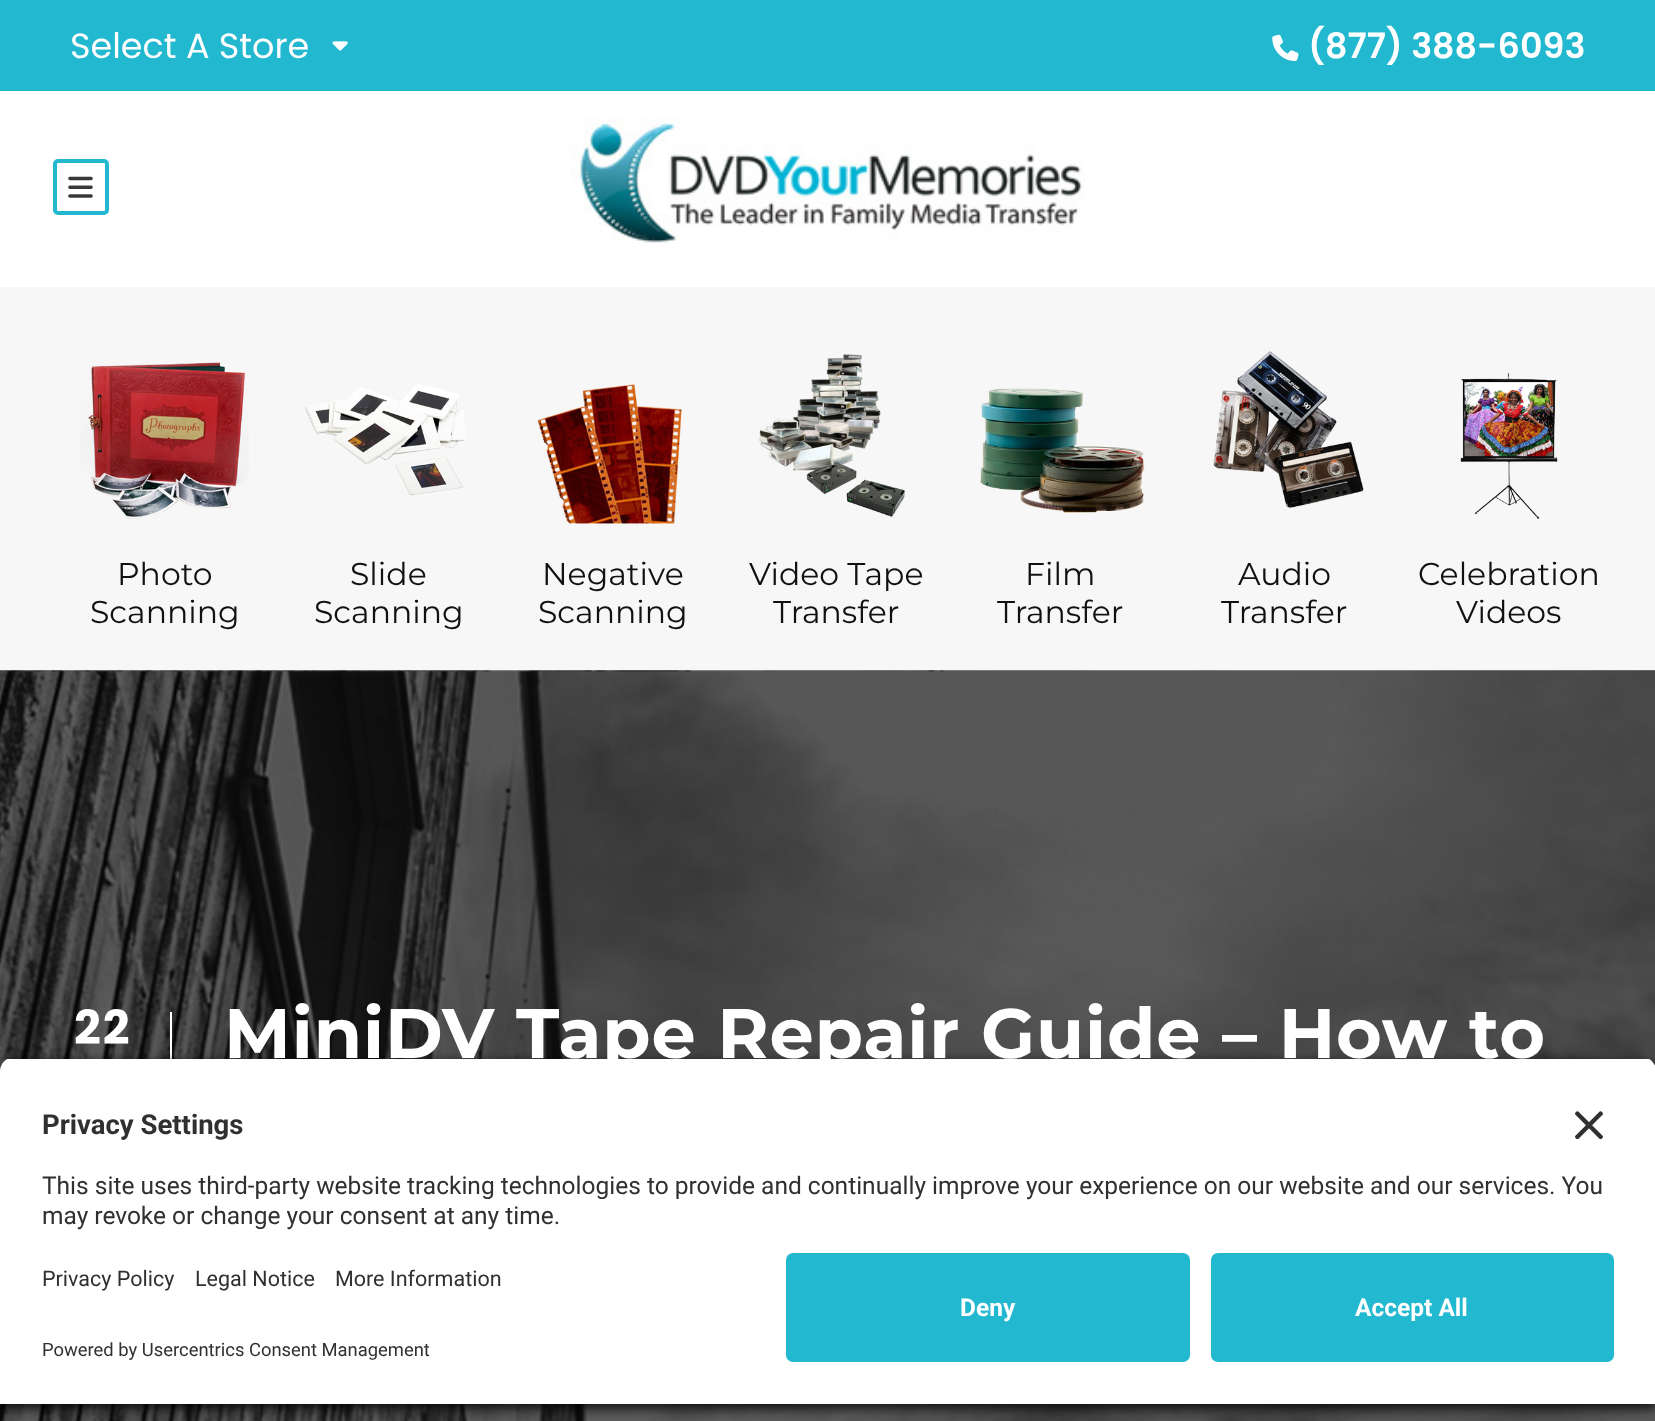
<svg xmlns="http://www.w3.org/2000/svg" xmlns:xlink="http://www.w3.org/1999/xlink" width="1655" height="1421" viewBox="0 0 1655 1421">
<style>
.cls-1{font:35px Poppins;fill:#ffffff}
.cls-2{font:600 35px Poppins;fill:#ffffff}
.cls-3{font:31.5px Montserrat;fill:#111111}
.cls-4{font:bold 47px Poppins;letter-spacing:2px;fill:#ffffff}
.cls-5{font:bold 70px Montserrat;letter-spacing:0.9px;fill:#ffffff}
.cls-6{font:bold 27.5px Roboto;fill:#303030}
.cls-7{font:24.5px Roboto;fill:#303030}
.cls-8{font:21.5px Roboto;fill:#303030}
.cls-9{font:18.4px Roboto;fill:#303030}
.cls-10{font:bold 24.5px Roboto;fill:#ffffff}
</style>
<defs>
<clipPath id="clip1"><rect x="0" y="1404" width="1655" height="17"/></clipPath>
<clipPath id="clip2"><rect x="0" y="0" width="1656" height="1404"/></clipPath>
<clipPath id="clip3"><path d="M14 1057H1642C1649.5 1057 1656 1063.5 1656 1071V1239H0V1071C0 1063.5 6.5 1057 14 1057Z"/></clipPath>
</defs>
<rect width="100%" height="100%" fill="#ffffff"/>
<rect fill="#22b8cf" x="0" y="0" width="1655" height="91"/>
<image xlink:href="image0.png" x="332" y="41" width="16" height="10"/>
<image xlink:href="image1.png" x="1272" y="34" width="27" height="27"/>
<rect fill="none" stroke="#22b8cf" stroke-width="4" x="55" y="161" width="52" height="52" rx="3"/>
<image xlink:href="image2.png" x="68" y="176" width="25" height="22"/>
<image xlink:href="image3.png" x="570" y="117" width="515" height="127"/>
<rect fill="#f7f7f7" x="0" y="287" width="1655" height="384"/>
<image xlink:href="image4.png" x="80" y="362" width="169" height="157"/>
<image xlink:href="image5.png" x="305" y="384" width="161" height="112"/>
<image xlink:href="image6.png" x="537" y="384" width="145" height="140"/>
<image xlink:href="image7.png" x="759" y="354" width="146" height="163"/>
<image xlink:href="image8.png" x="980" y="388" width="165" height="125"/>
<image xlink:href="image9.png" x="1213" y="351" width="151" height="157"/>
<image xlink:href="image10.png" x="1460" y="372" width="98" height="147"/>
<image xlink:href="image11.png" x="0" y="670" width="1655" height="751"/>
<rect fill="#ffffff" x="170" y="1012" width="2" height="47"/>
<g clip-path="url(#clip1)">
<rect fill="#000000" fill-opacity="0.8" filter="blur(6px)" x="0" y="-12" width="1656" height="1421"/>
</g>
<g clip-path="url(#clip2)">
<rect fill="#000000" fill-opacity="0.8" filter="blur(6px)" x="0" y="1062" width="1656" height="347" rx="14"/>
</g>
<g clip-path="url(#clip3)">
<rect fill="#ffffff" x="0" y="1059" width="1655" height="180"/>
</g>
<image xlink:href="image12.png" x="1575" y="1111" width="28" height="28"/>
<rect fill="#ffffff" x="0" y="1239" width="1655" height="165"/>
<rect fill="#22b8cf" x="786" y="1253" width="404" height="109" rx="7"/>
<rect fill="#22b8cf" x="1211" y="1253" width="403" height="109" rx="7"/>
<text class="cls-1" x="70" y="58">Select A Store</text>
<text class="cls-2" x="1308" y="58">(877) 388-6093</text>
<text class="cls-3" x="117" y="585">Photo</text>
<text class="cls-3" x="90" y="623">Scanning</text>
<text class="cls-3" x="350" y="585">Slide</text>
<text class="cls-3" x="314" y="623">Scanning</text>
<text class="cls-3" x="542" y="585">Negative</text>
<text class="cls-3" x="538" y="623">Scanning</text>
<text class="cls-3" x="749" y="585">Video Tape</text>
<text class="cls-3" x="773" y="623">Transfer</text>
<text class="cls-3" x="1025" y="585">Film</text>
<text class="cls-3" x="997" y="623">Transfer</text>
<text class="cls-3" x="1238" y="585">Audio</text>
<text class="cls-3" x="1221" y="623">Transfer</text>
<text class="cls-3" x="1418" y="585">Celebration</text>
<text class="cls-3" x="1456" y="623">Videos</text>
<text class="cls-4" x="74" y="1044">22</text>
<text class="cls-5" x="224" y="1058">MiniDV Tape Repair Guide – How to</text>
<text class="cls-6" x="42" y="1134">Privacy Settings</text>
<text class="cls-7"><tspan x="42" y="1194">This site uses third-party website tracking technologies to provide and continually improve your experience on our website and our services. You</tspan><tspan x="42" y="1224">may revoke or change your consent at any time.</tspan></text>
<text class="cls-8" x="42" y="1286">Privacy Policy</text>
<text class="cls-8" x="195" y="1286">Legal Notice</text>
<text class="cls-8" x="335" y="1286">More Information</text>
<text class="cls-9" x="42" y="1356">Powered by Usercentrics Consent Management</text>
<text class="cls-10" x="960" y="1316">Deny</text>
<text class="cls-10" x="1355" y="1316">Accept All</text>
</svg>
